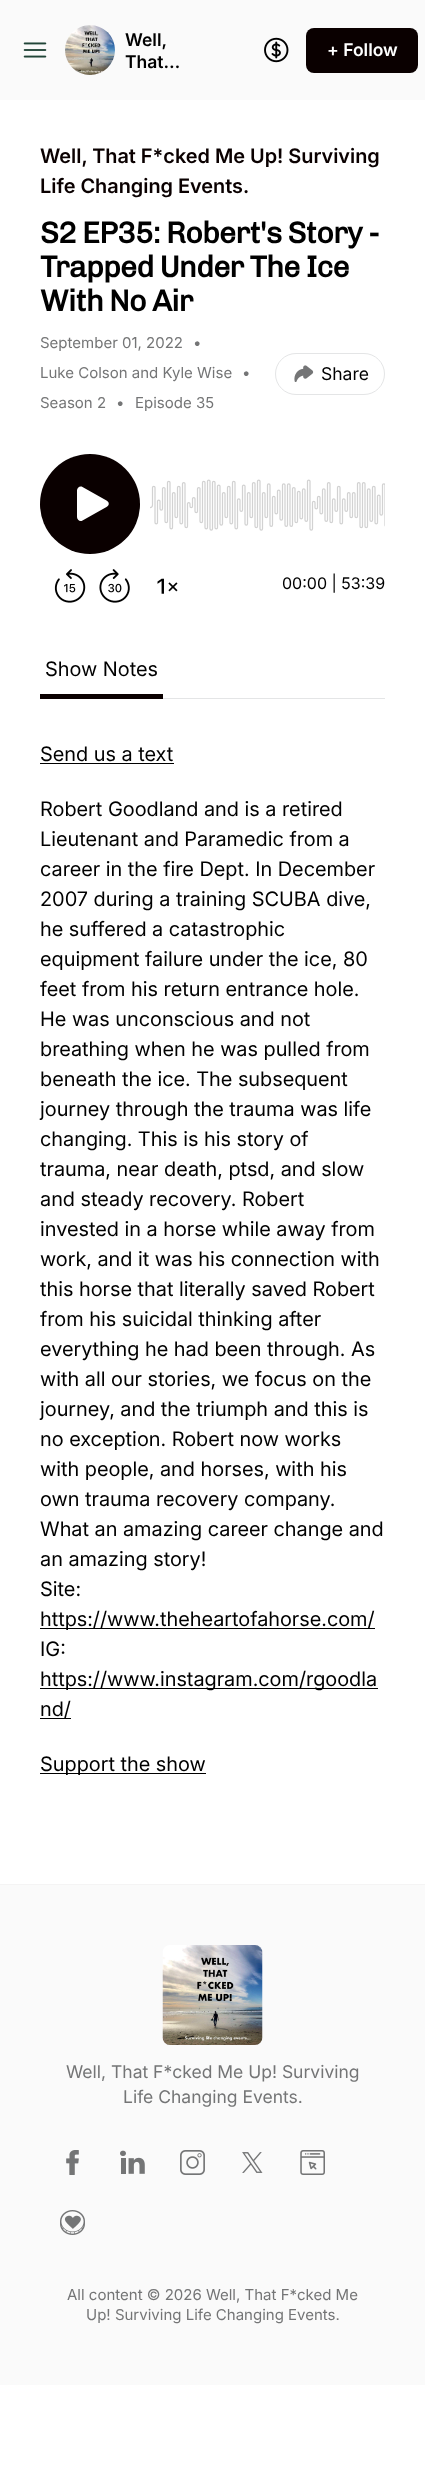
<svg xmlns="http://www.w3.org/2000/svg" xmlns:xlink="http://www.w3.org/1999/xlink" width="425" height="2475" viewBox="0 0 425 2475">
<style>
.cls-1{font:600 17.5px Inter;fill:#000000}
.cls-2{font:600 17.5px Inter;fill:#ffffff}
.cls-3{font:600 20px 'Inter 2';fill:#0a0000}
.cls-4{font:bold 30px Chivo;letter-spacing:-0.75px;fill:#000000}
.cls-5{font:15px Inter;fill:#747576}
.cls-6{font:17.5px Inter;fill:#000000}
.cls-7{font:16px Inter;fill:#000000}
.cls-8{font:20px 'Inter 2';fill:#000000}
.cls-9{font:17.5px Inter;fill:#747576}
</style>
<rect width="100%" height="100%" fill="#ffffff"/>
<rect fill="#fafafa" x="0" y="0" width="425" height="100"/>
<image xlink:href="image0.png" x="23" y="42" width="24" height="16"/>
<image xlink:href="image1.png" x="65" y="25" width="50" height="50"/>
<image xlink:href="image2.png" x="264" y="37" width="25" height="26"/>
<rect fill="#0a0000" x="306" y="28" width="112" height="45" rx="8"/>
<rect fill="none" stroke="#e4e5e6" x="275.5" y="353.5" width="109" height="41" rx="20.5"/>
<image xlink:href="image3.png" x="294" y="365" width="20" height="17"/>
<image xlink:href="image4.png" x="54" y="569" width="32" height="34"/>
<image xlink:href="image5.png" x="99" y="569" width="31" height="34"/>
<image xlink:href="image6.png" x="157" y="578" width="21" height="16"/>
<circle fill="#0a0000" cx="90" cy="504" r="50"/>
<path fill="#ffffff" fill-rule="evenodd" d="M77 490.5C77 487.5 80 485.5 82.5 487L106.5 500.5C109.5 502 109.5 505.5 106.5 507L82.5 520.5C80 522 77 520 77 517Z"/>
<image xlink:href="image7.png" x="150" y="479" width="235" height="52"/>
<rect fill="#e4e5e6" x="163" y="698" width="222" height="1"/>
<rect fill="#0a0000" x="40" y="694" width="123" height="5"/>
<rect fill="#000000" x="40" y="763" width="134" height="1"/>
<rect fill="#000000" x="40" y="1628" width="335" height="1"/>
<rect fill="#000000" x="40" y="1688" width="338" height="1"/>
<rect fill="#000000" x="40" y="1718" width="31" height="1"/>
<rect fill="#000000" x="40" y="1773" width="166" height="1"/>
<rect fill="#fafafa" x="0" y="1885" width="425" height="500"/>
<rect fill="#f4f4f4" x="0" y="1884" width="425" height="1"/>
<image xlink:href="image8.png" x="162" y="1945" width="101" height="100"/>
<image xlink:href="image9.png" x="66" y="2150" width="13" height="25"/>
<image xlink:href="image10.png" x="120" y="2150" width="25" height="24"/>
<image xlink:href="image11.png" x="180" y="2150" width="25" height="25"/>
<image xlink:href="image12.png" x="242" y="2152" width="21" height="21"/>
<image xlink:href="image13.png" x="300" y="2150" width="25" height="25"/>
<image xlink:href="image14.png" x="60" y="2210" width="25" height="25"/>
<text class="cls-1"><tspan x="125" y="46">Well,</tspan><tspan x="125" y="68">That…</tspan></text>
<text class="cls-2" x="327" y="56">+ Follow</text>
<text class="cls-3"><tspan x="40" y="163">Well, That F*cked Me Up! Surviving</tspan><tspan x="40" y="193">Life Changing Events.</tspan></text>
<text class="cls-4"><tspan x="40" y="243">S2 EP35: Robert's Story -</tspan><tspan x="40" y="277">Trapped Under The Ice</tspan><tspan x="40" y="311">With No Air</tspan></text>
<text class="cls-5" x="40" y="348">September 01, 2022</text>
<text class="cls-5" x="193" y="348">•</text>
<text class="cls-5" x="40" y="378">Luke Colson and Kyle Wise</text>
<text class="cls-5" x="242" y="378">•</text>
<text class="cls-5" x="40" y="408">Season 2</text>
<text class="cls-5" x="116" y="408">•</text>
<text class="cls-5" x="135" y="408">Episode 35</text>
<text class="cls-6" x="321" y="380">Share</text>
<text class="cls-7" x="282" y="589">00:00 | 53:39</text>
<text class="cls-8" x="45" y="676">Show Notes</text>
<text class="cls-8" x="40" y="761">Send us a text</text>
<text class="cls-8"><tspan x="40" y="816">Robert Goodland and is a retired</tspan><tspan x="40" y="846">Lieutenant and Paramedic from a</tspan><tspan x="40" y="876">career in the fire Dept. In December</tspan><tspan x="40" y="906">2007 during a training SCUBA dive,</tspan><tspan x="40" y="936">he suffered a catastrophic</tspan><tspan x="40" y="966">equipment failure under the ice, 80</tspan><tspan x="40" y="996">feet from his return entrance hole.</tspan><tspan x="40" y="1026">He was unconscious and not</tspan><tspan x="40" y="1056">breathing when he was pulled from</tspan><tspan x="40" y="1086">beneath the ice. The subsequent</tspan><tspan x="40" y="1116">journey through the trauma was life</tspan><tspan x="40" y="1146">changing. This is his story of</tspan><tspan x="40" y="1176">trauma, near death, ptsd, and slow</tspan><tspan x="40" y="1206">and steady recovery. Robert</tspan><tspan x="40" y="1236">invested in a horse while away from</tspan><tspan x="40" y="1266">work, and it was his connection with</tspan><tspan x="40" y="1296">this horse that literally saved Robert</tspan><tspan x="40" y="1326">from his suicidal thinking after</tspan><tspan x="40" y="1356">everything he had been through. As</tspan><tspan x="40" y="1386">with all our stories, we focus on the</tspan><tspan x="40" y="1416">journey, and the triumph and this is</tspan><tspan x="40" y="1446">no exception. Robert now works</tspan><tspan x="40" y="1476">with people, and horses, with his</tspan><tspan x="40" y="1506">own trauma recovery company.</tspan><tspan x="40" y="1536">What an amazing career change and</tspan><tspan x="40" y="1566">an amazing story!</tspan><tspan x="40" y="1596">Site:</tspan><tspan x="40" y="1626">https://www.theheartofahorse.com/</tspan><tspan x="40" y="1656">IG:</tspan><tspan x="40" y="1686">https://www.instagram.com/rgoodla</tspan><tspan x="40" y="1716">nd/</tspan></text>
<text class="cls-8" x="40" y="1771">Support the show</text>
<text class="cls-9" x="66" y="2078">Well, That F*cked Me Up! Surviving</text>
<text class="cls-9" x="123" y="2103">Life Changing Events.</text>
<text class="cls-5" x="67" y="2300">All content © 2026 Well, That F*cked Me</text>
<text class="cls-5" x="86" y="2320">Up! Surviving Life Changing Events.</text>
</svg>
